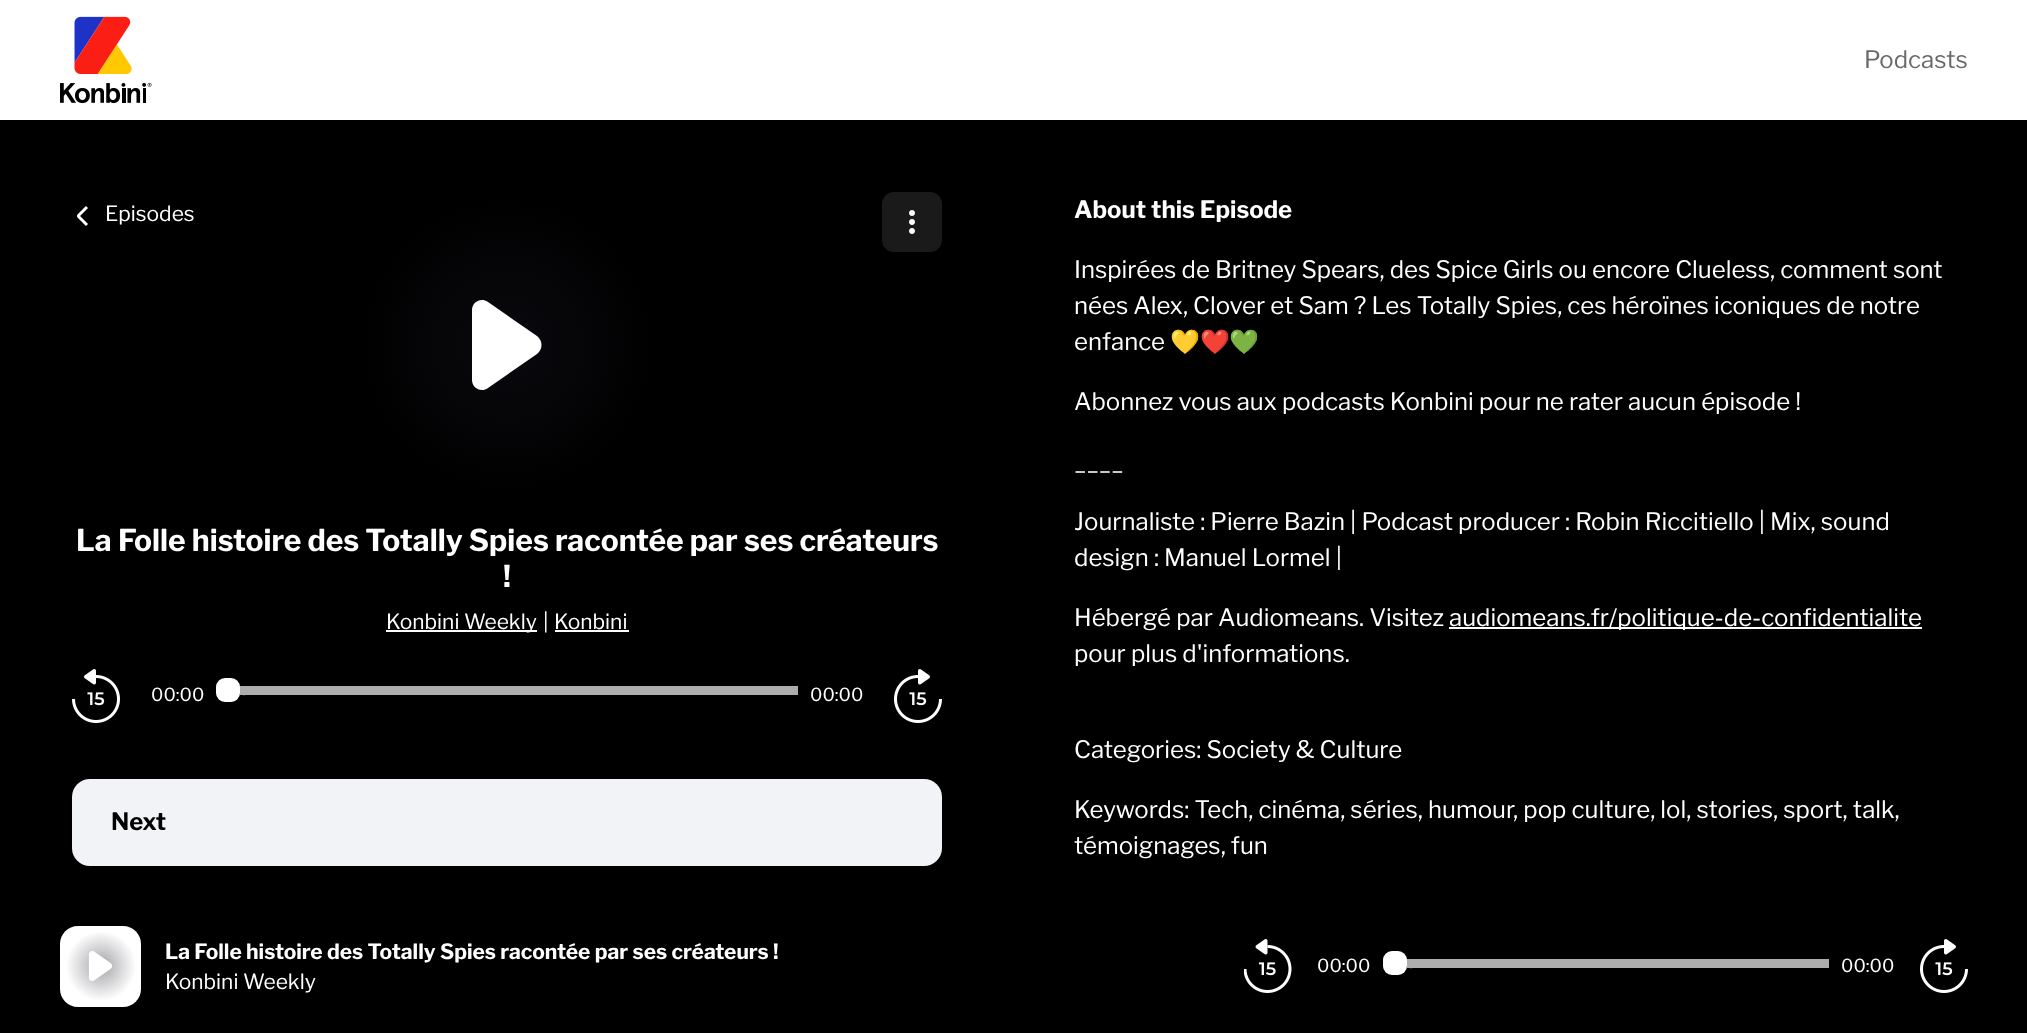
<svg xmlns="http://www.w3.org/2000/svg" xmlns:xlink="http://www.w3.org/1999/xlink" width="2027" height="1033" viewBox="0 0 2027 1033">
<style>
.cls-1{font:24px Libre Franklin;fill:#696969}
.cls-2{font:21px Libre Franklin;fill:#ffffff}
.cls-3{font:bold 30px Libre Franklin;fill:#ffffff}
.cls-4{font:18px Libre Franklin;fill:#ffffff}
.cls-5{font:bold 24px Libre Franklin;fill:#000000}
.cls-6{font:bold 24px Libre Franklin;fill:#ffffff}
.cls-7{font:24px Libre Franklin;fill:#ffffff}
.cls-8{font:24px Noto Color Emoji;fill:#ffffff}
.cls-9{font:bold 21px Libre Franklin;fill:#ffffff}
</style>
<defs>
<radialGradient id="g1" gradientUnits="userSpaceOnUse" cx="507" cy="345" r="153"><stop offset="0" stop-color="#0a090e"/><stop offset="1" stop-color="#000000"/></radialGradient>
<radialGradient id="g2" gradientUnits="userSpaceOnUse" cx="101" cy="966" r="35"><stop offset="0" stop-color="#a3a2a7"/><stop offset="1" stop-color="#ffffff"/></radialGradient>
<clipPath id="clip1"><rect x="1383" y="933" width="446" height="60"/></clipPath>
</defs>
<rect width="100%" height="100%" fill="#ffffff"/>
<image xlink:href="image0.png" x="60" y="16" width="92" height="88"/>
<rect fill="#000000" x="0" y="120" width="2027" height="818"/>
<path fill="none" stroke="#ffffff" stroke-width="3" d="M87 207L79 215C78.5 215.5 78.5 216.5 79 217L87 225"/>
<rect fill="#1a1a1a" x="882" y="192" width="60" height="60" rx="12"/>
<image xlink:href="image1.png" x="909" y="210" width="6" height="24"/>
<rect fill="url(#g1)" x="354" y="192" width="306" height="306" rx="12"/>
<path fill="#ffffff" d="M472 380V310C472 302 481 297 488 302L537 336C543 341 543 349 537 354L488 388C481 393 472 388 472 380Z"/>
<rect fill="#ffffff" x="386" y="630" width="151" height="2"/>
<rect fill="#ffffff" x="555" y="630" width="74" height="2"/>
<image xlink:href="image2.png" x="72" y="669" width="48" height="54"/>
<rect fill="#adadad" x="796" y="686" width="2" height="9"/>
<rect fill="#adadad" x="789" y="686" width="9" height="9" rx="1.5"/>
<rect fill="#adadad" x="788" y="686" width="9" height="9" rx="1.5"/>
<rect fill="#adadad" x="786" y="686" width="9" height="9" rx="1.5"/>
<rect fill="#adadad" x="785" y="686" width="9" height="9" rx="1.5"/>
<rect fill="#adadad" x="783" y="686" width="9" height="9" rx="1.5"/>
<rect fill="#adadad" x="782" y="686" width="9" height="9" rx="1.5"/>
<rect fill="#adadad" x="780" y="686" width="9" height="9" rx="1.5"/>
<rect fill="#adadad" x="779" y="686" width="9" height="9" rx="1.5"/>
<rect fill="#adadad" x="777" y="686" width="9" height="9" rx="1.5"/>
<rect fill="#adadad" x="776" y="686" width="9" height="9" rx="1.5"/>
<rect fill="#adadad" x="774" y="686" width="9" height="9" rx="1.5"/>
<rect fill="#adadad" x="773" y="686" width="9" height="9" rx="1.5"/>
<rect fill="#adadad" x="771" y="686" width="9" height="9" rx="1.5"/>
<rect fill="#adadad" x="770" y="686" width="9" height="9" rx="1.5"/>
<rect fill="#adadad" x="768" y="686" width="9" height="9" rx="1.5"/>
<rect fill="#adadad" x="767" y="686" width="9" height="9" rx="1.5"/>
<rect fill="#adadad" x="765" y="686" width="9" height="9" rx="1.5"/>
<rect fill="#adadad" x="764" y="686" width="9" height="9" rx="1.5"/>
<rect fill="#adadad" x="762" y="686" width="9" height="9" rx="1.5"/>
<rect fill="#adadad" x="761" y="686" width="9" height="9" rx="1.5"/>
<rect fill="#adadad" x="759" y="686" width="9" height="9" rx="1.5"/>
<rect fill="#adadad" x="758" y="686" width="9" height="9" rx="1.5"/>
<rect fill="#adadad" x="756" y="686" width="9" height="9" rx="1.5"/>
<rect fill="#adadad" x="755" y="686" width="9" height="9" rx="1.5"/>
<rect fill="#adadad" x="753" y="686" width="9" height="9" rx="1.5"/>
<rect fill="#adadad" x="752" y="686" width="9" height="9" rx="1.5"/>
<rect fill="#adadad" x="750" y="686" width="9" height="9" rx="1.5"/>
<rect fill="#adadad" x="749" y="686" width="9" height="9" rx="1.5"/>
<rect fill="#adadad" x="747" y="686" width="9" height="9" rx="1.5"/>
<rect fill="#adadad" x="746" y="686" width="9" height="9" rx="1.5"/>
<rect fill="#adadad" x="744" y="686" width="9" height="9" rx="1.5"/>
<rect fill="#adadad" x="743" y="686" width="9" height="9" rx="1.5"/>
<rect fill="#adadad" x="741" y="686" width="9" height="9" rx="1.5"/>
<rect fill="#adadad" x="740" y="686" width="9" height="9" rx="1.5"/>
<rect fill="#adadad" x="738" y="686" width="9" height="9" rx="1.5"/>
<rect fill="#adadad" x="737" y="686" width="9" height="9" rx="1.5"/>
<rect fill="#adadad" x="735" y="686" width="9" height="9" rx="1.5"/>
<rect fill="#adadad" x="734" y="686" width="9" height="9" rx="1.5"/>
<rect fill="#adadad" x="732" y="686" width="9" height="9" rx="1.5"/>
<rect fill="#adadad" x="731" y="686" width="9" height="9" rx="1.5"/>
<rect fill="#adadad" x="729" y="686" width="9" height="9" rx="1.5"/>
<rect fill="#adadad" x="728" y="686" width="9" height="9" rx="1.5"/>
<rect fill="#adadad" x="726" y="686" width="9" height="9" rx="1.5"/>
<rect fill="#adadad" x="725" y="686" width="9" height="9" rx="1.5"/>
<rect fill="#adadad" x="723" y="686" width="9" height="9" rx="1.5"/>
<rect fill="#adadad" x="722" y="686" width="9" height="9" rx="1.5"/>
<rect fill="#adadad" x="720" y="686" width="9" height="9" rx="1.5"/>
<rect fill="#adadad" x="719" y="686" width="9" height="9" rx="1.5"/>
<rect fill="#adadad" x="717" y="686" width="9" height="9" rx="1.5"/>
<rect fill="#adadad" x="716" y="686" width="9" height="9" rx="1.5"/>
<rect fill="#adadad" x="714" y="686" width="9" height="9" rx="1.5"/>
<rect fill="#adadad" x="713" y="686" width="9" height="9" rx="1.5"/>
<rect fill="#adadad" x="711" y="686" width="9" height="9" rx="1.5"/>
<rect fill="#adadad" x="710" y="686" width="9" height="9" rx="1.5"/>
<rect fill="#adadad" x="708" y="686" width="9" height="9" rx="1.5"/>
<rect fill="#adadad" x="707" y="686" width="9" height="9" rx="1.5"/>
<rect fill="#adadad" x="705" y="686" width="9" height="9" rx="1.5"/>
<rect fill="#adadad" x="704" y="686" width="9" height="9" rx="1.5"/>
<rect fill="#adadad" x="702" y="686" width="9" height="9" rx="1.5"/>
<rect fill="#adadad" x="701" y="686" width="9" height="9" rx="1.5"/>
<rect fill="#adadad" x="699" y="686" width="9" height="9" rx="1.5"/>
<rect fill="#adadad" x="698" y="686" width="9" height="9" rx="1.5"/>
<rect fill="#adadad" x="696" y="686" width="9" height="9" rx="1.5"/>
<rect fill="#adadad" x="695" y="686" width="9" height="9" rx="1.5"/>
<rect fill="#adadad" x="693" y="686" width="9" height="9" rx="1.5"/>
<rect fill="#adadad" x="692" y="686" width="9" height="9" rx="1.5"/>
<rect fill="#adadad" x="690" y="686" width="9" height="9" rx="1.5"/>
<rect fill="#adadad" x="689" y="686" width="9" height="9" rx="1.5"/>
<rect fill="#adadad" x="687" y="686" width="9" height="9" rx="1.5"/>
<rect fill="#adadad" x="686" y="686" width="9" height="9" rx="1.5"/>
<rect fill="#adadad" x="684" y="686" width="9" height="9" rx="1.5"/>
<rect fill="#adadad" x="683" y="686" width="9" height="9" rx="1.5"/>
<rect fill="#adadad" x="681" y="686" width="9" height="9" rx="1.5"/>
<rect fill="#adadad" x="680" y="686" width="9" height="9" rx="1.5"/>
<rect fill="#adadad" x="678" y="686" width="9" height="9" rx="1.5"/>
<rect fill="#adadad" x="677" y="686" width="9" height="9" rx="1.5"/>
<rect fill="#adadad" x="675" y="686" width="9" height="9" rx="1.5"/>
<rect fill="#adadad" x="674" y="686" width="9" height="9" rx="1.5"/>
<rect fill="#adadad" x="672" y="686" width="9" height="9" rx="1.5"/>
<rect fill="#adadad" x="671" y="686" width="9" height="9" rx="1.5"/>
<rect fill="#adadad" x="669" y="686" width="9" height="9" rx="1.5"/>
<rect fill="#adadad" x="668" y="686" width="9" height="9" rx="1.5"/>
<rect fill="#adadad" x="666" y="686" width="9" height="9" rx="1.5"/>
<rect fill="#adadad" x="665" y="686" width="9" height="9" rx="1.5"/>
<rect fill="#adadad" x="663" y="686" width="9" height="9" rx="1.5"/>
<rect fill="#adadad" x="662" y="686" width="9" height="9" rx="1.5"/>
<rect fill="#adadad" x="660" y="686" width="9" height="9" rx="1.5"/>
<rect fill="#adadad" x="659" y="686" width="9" height="9" rx="1.5"/>
<rect fill="#adadad" x="657" y="686" width="9" height="9" rx="1.5"/>
<rect fill="#adadad" x="656" y="686" width="9" height="9" rx="1.5"/>
<rect fill="#adadad" x="654" y="686" width="9" height="9" rx="1.5"/>
<rect fill="#adadad" x="653" y="686" width="9" height="9" rx="1.5"/>
<rect fill="#adadad" x="651" y="686" width="9" height="9" rx="1.5"/>
<rect fill="#adadad" x="650" y="686" width="9" height="9" rx="1.5"/>
<rect fill="#adadad" x="648" y="686" width="9" height="9" rx="1.5"/>
<rect fill="#adadad" x="647" y="686" width="9" height="9" rx="1.5"/>
<rect fill="#adadad" x="645" y="686" width="9" height="9" rx="1.5"/>
<rect fill="#adadad" x="644" y="686" width="9" height="9" rx="1.5"/>
<rect fill="#adadad" x="642" y="686" width="9" height="9" rx="1.5"/>
<rect fill="#adadad" x="641" y="686" width="9" height="9" rx="1.5"/>
<rect fill="#adadad" x="639" y="686" width="9" height="9" rx="1.5"/>
<rect fill="#adadad" x="638" y="686" width="9" height="9" rx="1.5"/>
<rect fill="#adadad" x="636" y="686" width="9" height="9" rx="1.5"/>
<rect fill="#adadad" x="635" y="686" width="9" height="9" rx="1.5"/>
<rect fill="#adadad" x="633" y="686" width="9" height="9" rx="1.5"/>
<rect fill="#adadad" x="632" y="686" width="9" height="9" rx="1.5"/>
<rect fill="#adadad" x="630" y="686" width="9" height="9" rx="1.5"/>
<rect fill="#adadad" x="629" y="686" width="9" height="9" rx="1.5"/>
<rect fill="#adadad" x="627" y="686" width="9" height="9" rx="1.5"/>
<rect fill="#adadad" x="626" y="686" width="9" height="9" rx="1.5"/>
<rect fill="#adadad" x="624" y="686" width="9" height="9" rx="1.5"/>
<rect fill="#adadad" x="623" y="686" width="9" height="9" rx="1.5"/>
<rect fill="#adadad" x="621" y="686" width="9" height="9" rx="1.5"/>
<rect fill="#adadad" x="620" y="686" width="9" height="9" rx="1.5"/>
<rect fill="#adadad" x="618" y="686" width="9" height="9" rx="1.5"/>
<rect fill="#adadad" x="617" y="686" width="9" height="9" rx="1.5"/>
<rect fill="#adadad" x="615" y="686" width="9" height="9" rx="1.5"/>
<rect fill="#adadad" x="614" y="686" width="9" height="9" rx="1.5"/>
<rect fill="#adadad" x="612" y="686" width="9" height="9" rx="1.5"/>
<rect fill="#adadad" x="611" y="686" width="9" height="9" rx="1.5"/>
<rect fill="#adadad" x="609" y="686" width="9" height="9" rx="1.5"/>
<rect fill="#adadad" x="608" y="686" width="9" height="9" rx="1.5"/>
<rect fill="#adadad" x="606" y="686" width="9" height="9" rx="1.5"/>
<rect fill="#adadad" x="605" y="686" width="9" height="9" rx="1.5"/>
<rect fill="#adadad" x="603" y="686" width="9" height="9" rx="1.5"/>
<rect fill="#adadad" x="602" y="686" width="9" height="9" rx="1.5"/>
<rect fill="#adadad" x="600" y="686" width="9" height="9" rx="1.5"/>
<rect fill="#adadad" x="599" y="686" width="9" height="9" rx="1.5"/>
<rect fill="#adadad" x="597" y="686" width="9" height="9" rx="1.5"/>
<rect fill="#adadad" x="596" y="686" width="9" height="9" rx="1.5"/>
<rect fill="#adadad" x="594" y="686" width="9" height="9" rx="1.5"/>
<rect fill="#adadad" x="593" y="686" width="9" height="9" rx="1.5"/>
<rect fill="#adadad" x="591" y="686" width="9" height="9" rx="1.5"/>
<rect fill="#adadad" x="590" y="686" width="9" height="9" rx="1.5"/>
<rect fill="#adadad" x="588" y="686" width="9" height="9" rx="1.5"/>
<rect fill="#adadad" x="587" y="686" width="9" height="9" rx="1.5"/>
<rect fill="#adadad" x="585" y="686" width="9" height="9" rx="1.5"/>
<rect fill="#adadad" x="584" y="686" width="9" height="9" rx="1.5"/>
<rect fill="#adadad" x="582" y="686" width="9" height="9" rx="1.5"/>
<rect fill="#adadad" x="581" y="686" width="9" height="9" rx="1.5"/>
<rect fill="#adadad" x="579" y="686" width="9" height="9" rx="1.5"/>
<rect fill="#adadad" x="578" y="686" width="9" height="9" rx="1.5"/>
<rect fill="#adadad" x="576" y="686" width="9" height="9" rx="1.5"/>
<rect fill="#adadad" x="575" y="686" width="9" height="9" rx="1.5"/>
<rect fill="#adadad" x="573" y="686" width="9" height="9" rx="1.5"/>
<rect fill="#adadad" x="572" y="686" width="9" height="9" rx="1.5"/>
<rect fill="#adadad" x="570" y="686" width="9" height="9" rx="1.5"/>
<rect fill="#adadad" x="569" y="686" width="9" height="9" rx="1.5"/>
<rect fill="#adadad" x="567" y="686" width="9" height="9" rx="1.5"/>
<rect fill="#adadad" x="566" y="686" width="9" height="9" rx="1.5"/>
<rect fill="#adadad" x="564" y="686" width="9" height="9" rx="1.5"/>
<rect fill="#adadad" x="563" y="686" width="9" height="9" rx="1.5"/>
<rect fill="#adadad" x="561" y="686" width="9" height="9" rx="1.5"/>
<rect fill="#adadad" x="560" y="686" width="9" height="9" rx="1.5"/>
<rect fill="#adadad" x="558" y="686" width="9" height="9" rx="1.5"/>
<rect fill="#adadad" x="557" y="686" width="9" height="9" rx="1.5"/>
<rect fill="#adadad" x="555" y="686" width="9" height="9" rx="1.5"/>
<rect fill="#adadad" x="554" y="686" width="9" height="9" rx="1.5"/>
<rect fill="#adadad" x="552" y="686" width="9" height="9" rx="1.5"/>
<rect fill="#adadad" x="551" y="686" width="9" height="9" rx="1.5"/>
<rect fill="#adadad" x="549" y="686" width="9" height="9" rx="1.5"/>
<rect fill="#adadad" x="548" y="686" width="9" height="9" rx="1.5"/>
<rect fill="#adadad" x="546" y="686" width="9" height="9" rx="1.5"/>
<rect fill="#adadad" x="545" y="686" width="9" height="9" rx="1.5"/>
<rect fill="#adadad" x="543" y="686" width="9" height="9" rx="1.5"/>
<rect fill="#adadad" x="542" y="686" width="9" height="9" rx="1.5"/>
<rect fill="#adadad" x="540" y="686" width="9" height="9" rx="1.5"/>
<rect fill="#adadad" x="539" y="686" width="9" height="9" rx="1.5"/>
<rect fill="#adadad" x="537" y="686" width="9" height="9" rx="1.5"/>
<rect fill="#adadad" x="536" y="686" width="9" height="9" rx="1.5"/>
<rect fill="#adadad" x="534" y="686" width="9" height="9" rx="1.5"/>
<rect fill="#adadad" x="533" y="686" width="9" height="9" rx="1.5"/>
<rect fill="#adadad" x="531" y="686" width="9" height="9" rx="1.5"/>
<rect fill="#adadad" x="530" y="686" width="9" height="9" rx="1.5"/>
<rect fill="#adadad" x="528" y="686" width="9" height="9" rx="1.5"/>
<rect fill="#adadad" x="527" y="686" width="9" height="9" rx="1.5"/>
<rect fill="#adadad" x="525" y="686" width="9" height="9" rx="1.5"/>
<rect fill="#adadad" x="524" y="686" width="9" height="9" rx="1.5"/>
<rect fill="#adadad" x="522" y="686" width="9" height="9" rx="1.5"/>
<rect fill="#adadad" x="521" y="686" width="9" height="9" rx="1.5"/>
<rect fill="#adadad" x="519" y="686" width="9" height="9" rx="1.5"/>
<rect fill="#adadad" x="518" y="686" width="9" height="9" rx="1.5"/>
<rect fill="#adadad" x="516" y="686" width="9" height="9" rx="1.5"/>
<rect fill="#adadad" x="515" y="686" width="9" height="9" rx="1.5"/>
<rect fill="#adadad" x="513" y="686" width="9" height="9" rx="1.5"/>
<rect fill="#adadad" x="512" y="686" width="9" height="9" rx="1.5"/>
<rect fill="#adadad" x="510" y="686" width="9" height="9" rx="1.5"/>
<rect fill="#adadad" x="509" y="686" width="9" height="9" rx="1.5"/>
<rect fill="#adadad" x="507" y="686" width="9" height="9" rx="1.5"/>
<rect fill="#adadad" x="506" y="686" width="9" height="9" rx="1.5"/>
<rect fill="#adadad" x="504" y="686" width="9" height="9" rx="1.5"/>
<rect fill="#adadad" x="503" y="686" width="9" height="9" rx="1.5"/>
<rect fill="#adadad" x="501" y="686" width="9" height="9" rx="1.5"/>
<rect fill="#adadad" x="500" y="686" width="9" height="9" rx="1.5"/>
<rect fill="#adadad" x="498" y="686" width="9" height="9" rx="1.5"/>
<rect fill="#adadad" x="497" y="686" width="9" height="9" rx="1.5"/>
<rect fill="#adadad" x="495" y="686" width="9" height="9" rx="1.5"/>
<rect fill="#adadad" x="494" y="686" width="9" height="9" rx="1.5"/>
<rect fill="#adadad" x="492" y="686" width="9" height="9" rx="1.5"/>
<rect fill="#adadad" x="491" y="686" width="9" height="9" rx="1.5"/>
<rect fill="#adadad" x="489" y="686" width="9" height="9" rx="1.5"/>
<rect fill="#adadad" x="488" y="686" width="9" height="9" rx="1.5"/>
<rect fill="#adadad" x="486" y="686" width="9" height="9" rx="1.5"/>
<rect fill="#adadad" x="485" y="686" width="9" height="9" rx="1.5"/>
<rect fill="#adadad" x="483" y="686" width="9" height="9" rx="1.5"/>
<rect fill="#adadad" x="482" y="686" width="9" height="9" rx="1.5"/>
<rect fill="#adadad" x="480" y="686" width="9" height="9" rx="1.5"/>
<rect fill="#adadad" x="479" y="686" width="9" height="9" rx="1.5"/>
<rect fill="#adadad" x="477" y="686" width="9" height="9" rx="1.5"/>
<rect fill="#adadad" x="476" y="686" width="9" height="9" rx="1.5"/>
<rect fill="#adadad" x="474" y="686" width="9" height="9" rx="1.5"/>
<rect fill="#adadad" x="473" y="686" width="9" height="9" rx="1.5"/>
<rect fill="#adadad" x="471" y="686" width="9" height="9" rx="1.5"/>
<rect fill="#adadad" x="470" y="686" width="9" height="9" rx="1.5"/>
<rect fill="#adadad" x="468" y="686" width="9" height="9" rx="1.5"/>
<rect fill="#adadad" x="467" y="686" width="9" height="9" rx="1.5"/>
<rect fill="#adadad" x="465" y="686" width="9" height="9" rx="1.5"/>
<rect fill="#adadad" x="464" y="686" width="9" height="9" rx="1.5"/>
<rect fill="#adadad" x="462" y="686" width="9" height="9" rx="1.5"/>
<rect fill="#adadad" x="461" y="686" width="9" height="9" rx="1.5"/>
<rect fill="#adadad" x="459" y="686" width="9" height="9" rx="1.5"/>
<rect fill="#adadad" x="458" y="686" width="9" height="9" rx="1.5"/>
<rect fill="#adadad" x="456" y="686" width="9" height="9" rx="1.5"/>
<rect fill="#adadad" x="455" y="686" width="9" height="9" rx="1.5"/>
<rect fill="#adadad" x="453" y="686" width="9" height="9" rx="1.5"/>
<rect fill="#adadad" x="452" y="686" width="9" height="9" rx="1.5"/>
<rect fill="#adadad" x="450" y="686" width="9" height="9" rx="1.5"/>
<rect fill="#adadad" x="449" y="686" width="9" height="9" rx="1.5"/>
<rect fill="#adadad" x="447" y="686" width="9" height="9" rx="1.5"/>
<rect fill="#adadad" x="446" y="686" width="9" height="9" rx="1.5"/>
<rect fill="#adadad" x="444" y="686" width="9" height="9" rx="1.5"/>
<rect fill="#adadad" x="443" y="686" width="9" height="9" rx="1.5"/>
<rect fill="#adadad" x="441" y="686" width="9" height="9" rx="1.5"/>
<rect fill="#adadad" x="440" y="686" width="9" height="9" rx="1.5"/>
<rect fill="#adadad" x="438" y="686" width="9" height="9" rx="1.5"/>
<rect fill="#adadad" x="437" y="686" width="9" height="9" rx="1.5"/>
<rect fill="#adadad" x="435" y="686" width="9" height="9" rx="1.5"/>
<rect fill="#adadad" x="434" y="686" width="9" height="9" rx="1.5"/>
<rect fill="#adadad" x="432" y="686" width="9" height="9" rx="1.5"/>
<rect fill="#adadad" x="431" y="686" width="9" height="9" rx="1.5"/>
<rect fill="#adadad" x="429" y="686" width="9" height="9" rx="1.5"/>
<rect fill="#adadad" x="428" y="686" width="9" height="9" rx="1.5"/>
<rect fill="#adadad" x="426" y="686" width="9" height="9" rx="1.5"/>
<rect fill="#adadad" x="425" y="686" width="9" height="9" rx="1.5"/>
<rect fill="#adadad" x="423" y="686" width="9" height="9" rx="1.5"/>
<rect fill="#adadad" x="422" y="686" width="9" height="9" rx="1.5"/>
<rect fill="#adadad" x="420" y="686" width="9" height="9" rx="1.5"/>
<rect fill="#adadad" x="419" y="686" width="9" height="9" rx="1.5"/>
<rect fill="#adadad" x="417" y="686" width="9" height="9" rx="1.5"/>
<rect fill="#adadad" x="416" y="686" width="9" height="9" rx="1.5"/>
<rect fill="#adadad" x="414" y="686" width="9" height="9" rx="1.5"/>
<rect fill="#adadad" x="413" y="686" width="9" height="9" rx="1.5"/>
<rect fill="#adadad" x="411" y="686" width="9" height="9" rx="1.5"/>
<rect fill="#adadad" x="410" y="686" width="9" height="9" rx="1.5"/>
<rect fill="#adadad" x="408" y="686" width="9" height="9" rx="1.5"/>
<rect fill="#adadad" x="407" y="686" width="9" height="9" rx="1.5"/>
<rect fill="#adadad" x="405" y="686" width="9" height="9" rx="1.5"/>
<rect fill="#adadad" x="404" y="686" width="9" height="9" rx="1.5"/>
<rect fill="#adadad" x="402" y="686" width="9" height="9" rx="1.5"/>
<rect fill="#adadad" x="401" y="686" width="9" height="9" rx="1.5"/>
<rect fill="#adadad" x="399" y="686" width="9" height="9" rx="1.5"/>
<rect fill="#adadad" x="398" y="686" width="9" height="9" rx="1.5"/>
<rect fill="#adadad" x="396" y="686" width="9" height="9" rx="1.5"/>
<rect fill="#adadad" x="395" y="686" width="9" height="9" rx="1.5"/>
<rect fill="#adadad" x="393" y="686" width="9" height="9" rx="1.5"/>
<rect fill="#adadad" x="392" y="686" width="9" height="9" rx="1.5"/>
<rect fill="#adadad" x="390" y="686" width="9" height="9" rx="1.5"/>
<rect fill="#adadad" x="389" y="686" width="9" height="9" rx="1.5"/>
<rect fill="#adadad" x="387" y="686" width="9" height="9" rx="1.5"/>
<rect fill="#adadad" x="386" y="686" width="9" height="9" rx="1.5"/>
<rect fill="#adadad" x="384" y="686" width="9" height="9" rx="1.5"/>
<rect fill="#adadad" x="383" y="686" width="9" height="9" rx="1.5"/>
<rect fill="#adadad" x="381" y="686" width="9" height="9" rx="1.5"/>
<rect fill="#adadad" x="380" y="686" width="9" height="9" rx="1.5"/>
<rect fill="#adadad" x="378" y="686" width="9" height="9" rx="1.5"/>
<rect fill="#adadad" x="377" y="686" width="9" height="9" rx="1.5"/>
<rect fill="#adadad" x="375" y="686" width="9" height="9" rx="1.5"/>
<rect fill="#adadad" x="374" y="686" width="9" height="9" rx="1.5"/>
<rect fill="#adadad" x="372" y="686" width="9" height="9" rx="1.5"/>
<rect fill="#adadad" x="371" y="686" width="9" height="9" rx="1.5"/>
<rect fill="#adadad" x="369" y="686" width="9" height="9" rx="1.5"/>
<rect fill="#adadad" x="368" y="686" width="9" height="9" rx="1.5"/>
<rect fill="#adadad" x="366" y="686" width="9" height="9" rx="1.5"/>
<rect fill="#adadad" x="365" y="686" width="9" height="9" rx="1.5"/>
<rect fill="#adadad" x="363" y="686" width="9" height="9" rx="1.5"/>
<rect fill="#adadad" x="362" y="686" width="9" height="9" rx="1.5"/>
<rect fill="#adadad" x="360" y="686" width="9" height="9" rx="1.5"/>
<rect fill="#adadad" x="359" y="686" width="9" height="9" rx="1.5"/>
<rect fill="#adadad" x="357" y="686" width="9" height="9" rx="1.5"/>
<rect fill="#adadad" x="356" y="686" width="9" height="9" rx="1.5"/>
<rect fill="#adadad" x="354" y="686" width="9" height="9" rx="1.5"/>
<rect fill="#adadad" x="353" y="686" width="9" height="9" rx="1.5"/>
<rect fill="#adadad" x="351" y="686" width="9" height="9" rx="1.5"/>
<rect fill="#adadad" x="350" y="686" width="9" height="9" rx="1.5"/>
<rect fill="#adadad" x="348" y="686" width="9" height="9" rx="1.5"/>
<rect fill="#adadad" x="347" y="686" width="9" height="9" rx="1.5"/>
<rect fill="#adadad" x="345" y="686" width="9" height="9" rx="1.5"/>
<rect fill="#adadad" x="344" y="686" width="9" height="9" rx="1.5"/>
<rect fill="#adadad" x="342" y="686" width="9" height="9" rx="1.5"/>
<rect fill="#adadad" x="341" y="686" width="9" height="9" rx="1.5"/>
<rect fill="#adadad" x="339" y="686" width="9" height="9" rx="1.5"/>
<rect fill="#adadad" x="338" y="686" width="9" height="9" rx="1.5"/>
<rect fill="#adadad" x="336" y="686" width="9" height="9" rx="1.5"/>
<rect fill="#adadad" x="335" y="686" width="9" height="9" rx="1.5"/>
<rect fill="#adadad" x="333" y="686" width="9" height="9" rx="1.5"/>
<rect fill="#adadad" x="332" y="686" width="9" height="9" rx="1.5"/>
<rect fill="#adadad" x="330" y="686" width="9" height="9" rx="1.5"/>
<rect fill="#adadad" x="329" y="686" width="9" height="9" rx="1.5"/>
<rect fill="#adadad" x="327" y="686" width="9" height="9" rx="1.5"/>
<rect fill="#adadad" x="326" y="686" width="9" height="9" rx="1.5"/>
<rect fill="#adadad" x="324" y="686" width="9" height="9" rx="1.5"/>
<rect fill="#adadad" x="323" y="686" width="9" height="9" rx="1.5"/>
<rect fill="#adadad" x="321" y="686" width="9" height="9" rx="1.5"/>
<rect fill="#adadad" x="320" y="686" width="9" height="9" rx="1.5"/>
<rect fill="#adadad" x="318" y="686" width="9" height="9" rx="1.5"/>
<rect fill="#adadad" x="317" y="686" width="9" height="9" rx="1.5"/>
<rect fill="#adadad" x="315" y="686" width="9" height="9" rx="1.5"/>
<rect fill="#adadad" x="314" y="686" width="9" height="9" rx="1.5"/>
<rect fill="#adadad" x="312" y="686" width="9" height="9" rx="1.5"/>
<rect fill="#adadad" x="311" y="686" width="9" height="9" rx="1.5"/>
<rect fill="#adadad" x="309" y="686" width="9" height="9" rx="1.5"/>
<rect fill="#adadad" x="308" y="686" width="9" height="9" rx="1.5"/>
<rect fill="#adadad" x="306" y="686" width="9" height="9" rx="1.5"/>
<rect fill="#adadad" x="305" y="686" width="9" height="9" rx="1.5"/>
<rect fill="#adadad" x="303" y="686" width="9" height="9" rx="1.5"/>
<rect fill="#adadad" x="302" y="686" width="9" height="9" rx="1.5"/>
<rect fill="#adadad" x="300" y="686" width="9" height="9" rx="1.5"/>
<rect fill="#adadad" x="299" y="686" width="9" height="9" rx="1.5"/>
<rect fill="#adadad" x="297" y="686" width="9" height="9" rx="1.5"/>
<rect fill="#adadad" x="296" y="686" width="9" height="9" rx="1.5"/>
<rect fill="#adadad" x="294" y="686" width="9" height="9" rx="1.5"/>
<rect fill="#adadad" x="293" y="686" width="9" height="9" rx="1.5"/>
<rect fill="#adadad" x="291" y="686" width="9" height="9" rx="1.5"/>
<rect fill="#adadad" x="290" y="686" width="9" height="9" rx="1.5"/>
<rect fill="#adadad" x="288" y="686" width="9" height="9" rx="1.5"/>
<rect fill="#adadad" x="287" y="686" width="9" height="9" rx="1.5"/>
<rect fill="#adadad" x="285" y="686" width="9" height="9" rx="1.5"/>
<rect fill="#adadad" x="284" y="686" width="9" height="9" rx="1.5"/>
<rect fill="#adadad" x="282" y="686" width="9" height="9" rx="1.5"/>
<rect fill="#adadad" x="281" y="686" width="9" height="9" rx="1.5"/>
<rect fill="#adadad" x="279" y="686" width="9" height="9" rx="1.5"/>
<rect fill="#adadad" x="278" y="686" width="9" height="9" rx="1.5"/>
<rect fill="#adadad" x="276" y="686" width="9" height="9" rx="1.5"/>
<rect fill="#adadad" x="275" y="686" width="9" height="9" rx="1.5"/>
<rect fill="#adadad" x="273" y="686" width="9" height="9" rx="1.5"/>
<rect fill="#adadad" x="272" y="686" width="9" height="9" rx="1.5"/>
<rect fill="#adadad" x="270" y="686" width="9" height="9" rx="1.5"/>
<rect fill="#adadad" x="269" y="686" width="9" height="9" rx="1.5"/>
<rect fill="#adadad" x="267" y="686" width="9" height="9" rx="1.5"/>
<rect fill="#adadad" x="266" y="686" width="9" height="9" rx="1.5"/>
<rect fill="#adadad" x="264" y="686" width="9" height="9" rx="1.5"/>
<rect fill="#adadad" x="263" y="686" width="9" height="9" rx="1.5"/>
<rect fill="#adadad" x="261" y="686" width="9" height="9" rx="1.5"/>
<rect fill="#adadad" x="260" y="686" width="9" height="9" rx="1.5"/>
<rect fill="#adadad" x="258" y="686" width="9" height="9" rx="1.5"/>
<rect fill="#adadad" x="257" y="686" width="9" height="9" rx="1.5"/>
<rect fill="#adadad" x="255" y="686" width="9" height="9" rx="1.5"/>
<rect fill="#adadad" x="254" y="686" width="9" height="9" rx="1.5"/>
<rect fill="#adadad" x="252" y="686" width="9" height="9" rx="1.5"/>
<rect fill="#adadad" x="251" y="686" width="9" height="9" rx="1.5"/>
<rect fill="#adadad" x="249" y="686" width="9" height="9" rx="1.5"/>
<rect fill="#adadad" x="248" y="686" width="9" height="9" rx="1.5"/>
<rect fill="#adadad" x="246" y="686" width="9" height="9" rx="1.5"/>
<rect fill="#adadad" x="245" y="686" width="9" height="9" rx="1.5"/>
<rect fill="#adadad" x="243" y="686" width="9" height="9" rx="1.5"/>
<rect fill="#adadad" x="242" y="686" width="9" height="9" rx="1.5"/>
<rect fill="#adadad" x="240" y="686" width="9" height="9" rx="1.5"/>
<path fill="#adadad" d="M240.5 686H240V695H243.5C248 695 248 695 248 690.5C248 689 248.5 686 246.5 686Z"/>
<path fill="#adadad" d="M240 695C245.5 695 246 696.5 246 690.5C246 685 245.5 686 240 686Z"/>
<rect fill="#ffffff" x="216" y="678" width="24" height="24" rx="9"/>
<image xlink:href="image3.png" x="894" y="669" width="48" height="54"/>
<rect fill="#f2f3f6" x="72" y="779" width="870" height="87" rx="18"/>
<rect fill="#ffffff" x="1449" y="627" width="473" height="2"/>
<path fill="#000000" d="M36 902H1992C2012 902 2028 918 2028 938V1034H0V938C0 918 16 902 36 902Z"/>
<path fill="#ffffff" d="M78 926H123C133 926 141 934 141 944V989C141 999 133 1007 123 1007H78C68 1007 60 999 60 989V944C60 934 68 926 78 926Z"/>
<rect fill="url(#g2)" x="67" y="932" width="68" height="68"/>
<image xlink:href="image4.png" x="88" y="951" width="24" height="30"/>
<image xlink:href="image5.png" x="1244" y="939" width="48" height="54"/>
<g clip-path="url(#clip1)">
<rect fill="#adadad" x="1821" y="959" width="9" height="9" rx="1.5"/>
</g>
<rect fill="#adadad" x="1820" y="959" width="9" height="9" rx="1.5"/>
<rect fill="#adadad" x="1818" y="959" width="9" height="9" rx="1.5"/>
<rect fill="#adadad" x="1817" y="959" width="9" height="9" rx="1.5"/>
<rect fill="#adadad" x="1815" y="959" width="9" height="9" rx="1.5"/>
<rect fill="#adadad" x="1814" y="959" width="9" height="9" rx="1.5"/>
<rect fill="#adadad" x="1812" y="959" width="9" height="9" rx="1.5"/>
<rect fill="#adadad" x="1811" y="959" width="9" height="9" rx="1.5"/>
<rect fill="#adadad" x="1809" y="959" width="9" height="9" rx="1.5"/>
<rect fill="#adadad" x="1808" y="959" width="9" height="9" rx="1.5"/>
<rect fill="#adadad" x="1806" y="959" width="9" height="9" rx="1.5"/>
<rect fill="#adadad" x="1805" y="959" width="9" height="9" rx="1.5"/>
<rect fill="#adadad" x="1803" y="959" width="9" height="9" rx="1.5"/>
<rect fill="#adadad" x="1802" y="959" width="9" height="9" rx="1.5"/>
<rect fill="#adadad" x="1800" y="959" width="9" height="9" rx="1.5"/>
<rect fill="#adadad" x="1799" y="959" width="9" height="9" rx="1.5"/>
<rect fill="#adadad" x="1797" y="959" width="9" height="9" rx="1.5"/>
<rect fill="#adadad" x="1796" y="959" width="9" height="9" rx="1.5"/>
<rect fill="#adadad" x="1794" y="959" width="9" height="9" rx="1.5"/>
<rect fill="#adadad" x="1793" y="959" width="9" height="9" rx="1.5"/>
<rect fill="#adadad" x="1791" y="959" width="9" height="9" rx="1.5"/>
<rect fill="#adadad" x="1790" y="959" width="9" height="9" rx="1.5"/>
<rect fill="#adadad" x="1788" y="959" width="9" height="9" rx="1.5"/>
<rect fill="#adadad" x="1787" y="959" width="9" height="9" rx="1.5"/>
<rect fill="#adadad" x="1785" y="959" width="9" height="9" rx="1.5"/>
<rect fill="#adadad" x="1784" y="959" width="9" height="9" rx="1.5"/>
<rect fill="#adadad" x="1782" y="959" width="9" height="9" rx="1.5"/>
<rect fill="#adadad" x="1781" y="959" width="9" height="9" rx="1.5"/>
<rect fill="#adadad" x="1779" y="959" width="9" height="9" rx="1.5"/>
<rect fill="#adadad" x="1778" y="959" width="9" height="9" rx="1.5"/>
<rect fill="#adadad" x="1776" y="959" width="9" height="9" rx="1.5"/>
<rect fill="#adadad" x="1775" y="959" width="9" height="9" rx="1.5"/>
<rect fill="#adadad" x="1773" y="959" width="9" height="9" rx="1.5"/>
<rect fill="#adadad" x="1772" y="959" width="9" height="9" rx="1.5"/>
<rect fill="#adadad" x="1770" y="959" width="9" height="9" rx="1.5"/>
<rect fill="#adadad" x="1769" y="959" width="9" height="9" rx="1.5"/>
<rect fill="#adadad" x="1767" y="959" width="9" height="9" rx="1.5"/>
<rect fill="#adadad" x="1766" y="959" width="9" height="9" rx="1.5"/>
<rect fill="#adadad" x="1764" y="959" width="9" height="9" rx="1.5"/>
<rect fill="#adadad" x="1763" y="959" width="9" height="9" rx="1.5"/>
<rect fill="#adadad" x="1761" y="959" width="9" height="9" rx="1.5"/>
<rect fill="#adadad" x="1760" y="959" width="9" height="9" rx="1.5"/>
<rect fill="#adadad" x="1758" y="959" width="9" height="9" rx="1.5"/>
<rect fill="#adadad" x="1757" y="959" width="9" height="9" rx="1.5"/>
<rect fill="#adadad" x="1755" y="959" width="9" height="9" rx="1.5"/>
<rect fill="#adadad" x="1754" y="959" width="9" height="9" rx="1.5"/>
<rect fill="#adadad" x="1752" y="959" width="9" height="9" rx="1.5"/>
<rect fill="#adadad" x="1751" y="959" width="9" height="9" rx="1.5"/>
<rect fill="#adadad" x="1749" y="959" width="9" height="9" rx="1.5"/>
<rect fill="#adadad" x="1748" y="959" width="9" height="9" rx="1.5"/>
<rect fill="#adadad" x="1746" y="959" width="9" height="9" rx="1.5"/>
<rect fill="#adadad" x="1745" y="959" width="9" height="9" rx="1.5"/>
<rect fill="#adadad" x="1743" y="959" width="9" height="9" rx="1.5"/>
<rect fill="#adadad" x="1742" y="959" width="9" height="9" rx="1.5"/>
<rect fill="#adadad" x="1740" y="959" width="9" height="9" rx="1.5"/>
<rect fill="#adadad" x="1739" y="959" width="9" height="9" rx="1.5"/>
<rect fill="#adadad" x="1737" y="959" width="9" height="9" rx="1.5"/>
<rect fill="#adadad" x="1736" y="959" width="9" height="9" rx="1.5"/>
<rect fill="#adadad" x="1734" y="959" width="9" height="9" rx="1.5"/>
<rect fill="#adadad" x="1733" y="959" width="9" height="9" rx="1.5"/>
<rect fill="#adadad" x="1731" y="959" width="9" height="9" rx="1.5"/>
<rect fill="#adadad" x="1730" y="959" width="9" height="9" rx="1.5"/>
<rect fill="#adadad" x="1728" y="959" width="9" height="9" rx="1.5"/>
<rect fill="#adadad" x="1727" y="959" width="9" height="9" rx="1.5"/>
<rect fill="#adadad" x="1725" y="959" width="9" height="9" rx="1.5"/>
<rect fill="#adadad" x="1724" y="959" width="9" height="9" rx="1.5"/>
<rect fill="#adadad" x="1722" y="959" width="9" height="9" rx="1.5"/>
<rect fill="#adadad" x="1721" y="959" width="9" height="9" rx="1.5"/>
<rect fill="#adadad" x="1719" y="959" width="9" height="9" rx="1.5"/>
<rect fill="#adadad" x="1718" y="959" width="9" height="9" rx="1.5"/>
<rect fill="#adadad" x="1716" y="959" width="9" height="9" rx="1.5"/>
<rect fill="#adadad" x="1715" y="959" width="9" height="9" rx="1.5"/>
<rect fill="#adadad" x="1713" y="959" width="9" height="9" rx="1.5"/>
<rect fill="#adadad" x="1712" y="959" width="9" height="9" rx="1.5"/>
<rect fill="#adadad" x="1710" y="959" width="9" height="9" rx="1.5"/>
<rect fill="#adadad" x="1709" y="959" width="9" height="9" rx="1.5"/>
<rect fill="#adadad" x="1707" y="959" width="9" height="9" rx="1.5"/>
<rect fill="#adadad" x="1706" y="959" width="9" height="9" rx="1.5"/>
<rect fill="#adadad" x="1704" y="959" width="9" height="9" rx="1.5"/>
<rect fill="#adadad" x="1703" y="959" width="9" height="9" rx="1.5"/>
<rect fill="#adadad" x="1701" y="959" width="9" height="9" rx="1.5"/>
<rect fill="#adadad" x="1700" y="959" width="9" height="9" rx="1.5"/>
<rect fill="#adadad" x="1698" y="959" width="9" height="9" rx="1.5"/>
<rect fill="#adadad" x="1697" y="959" width="9" height="9" rx="1.5"/>
<rect fill="#adadad" x="1695" y="959" width="9" height="9" rx="1.5"/>
<rect fill="#adadad" x="1694" y="959" width="9" height="9" rx="1.5"/>
<rect fill="#adadad" x="1692" y="959" width="9" height="9" rx="1.5"/>
<rect fill="#adadad" x="1691" y="959" width="9" height="9" rx="1.5"/>
<rect fill="#adadad" x="1689" y="959" width="9" height="9" rx="1.5"/>
<rect fill="#adadad" x="1688" y="959" width="9" height="9" rx="1.5"/>
<rect fill="#adadad" x="1686" y="959" width="9" height="9" rx="1.5"/>
<rect fill="#adadad" x="1685" y="959" width="9" height="9" rx="1.5"/>
<rect fill="#adadad" x="1683" y="959" width="9" height="9" rx="1.5"/>
<rect fill="#adadad" x="1682" y="959" width="9" height="9" rx="1.5"/>
<rect fill="#adadad" x="1680" y="959" width="9" height="9" rx="1.5"/>
<rect fill="#adadad" x="1679" y="959" width="9" height="9" rx="1.5"/>
<rect fill="#adadad" x="1677" y="959" width="9" height="9" rx="1.5"/>
<rect fill="#adadad" x="1676" y="959" width="9" height="9" rx="1.5"/>
<rect fill="#adadad" x="1674" y="959" width="9" height="9" rx="1.5"/>
<rect fill="#adadad" x="1673" y="959" width="9" height="9" rx="1.5"/>
<rect fill="#adadad" x="1671" y="959" width="9" height="9" rx="1.5"/>
<rect fill="#adadad" x="1670" y="959" width="9" height="9" rx="1.5"/>
<rect fill="#adadad" x="1668" y="959" width="9" height="9" rx="1.5"/>
<rect fill="#adadad" x="1667" y="959" width="9" height="9" rx="1.5"/>
<rect fill="#adadad" x="1665" y="959" width="9" height="9" rx="1.5"/>
<rect fill="#adadad" x="1664" y="959" width="9" height="9" rx="1.5"/>
<rect fill="#adadad" x="1662" y="959" width="9" height="9" rx="1.5"/>
<rect fill="#adadad" x="1661" y="959" width="9" height="9" rx="1.5"/>
<rect fill="#adadad" x="1659" y="959" width="9" height="9" rx="1.5"/>
<rect fill="#adadad" x="1658" y="959" width="9" height="9" rx="1.5"/>
<rect fill="#adadad" x="1656" y="959" width="9" height="9" rx="1.5"/>
<rect fill="#adadad" x="1655" y="959" width="9" height="9" rx="1.5"/>
<rect fill="#adadad" x="1653" y="959" width="9" height="9" rx="1.5"/>
<rect fill="#adadad" x="1652" y="959" width="9" height="9" rx="1.5"/>
<rect fill="#adadad" x="1650" y="959" width="9" height="9" rx="1.5"/>
<rect fill="#adadad" x="1649" y="959" width="9" height="9" rx="1.5"/>
<rect fill="#adadad" x="1647" y="959" width="9" height="9" rx="1.5"/>
<rect fill="#adadad" x="1646" y="959" width="9" height="9" rx="1.5"/>
<rect fill="#adadad" x="1644" y="959" width="9" height="9" rx="1.5"/>
<rect fill="#adadad" x="1643" y="959" width="9" height="9" rx="1.5"/>
<rect fill="#adadad" x="1641" y="959" width="9" height="9" rx="1.5"/>
<rect fill="#adadad" x="1640" y="959" width="9" height="9" rx="1.5"/>
<rect fill="#adadad" x="1638" y="959" width="9" height="9" rx="1.5"/>
<rect fill="#adadad" x="1637" y="959" width="9" height="9" rx="1.5"/>
<rect fill="#adadad" x="1635" y="959" width="9" height="9" rx="1.5"/>
<rect fill="#adadad" x="1634" y="959" width="9" height="9" rx="1.5"/>
<rect fill="#adadad" x="1632" y="959" width="9" height="9" rx="1.5"/>
<rect fill="#adadad" x="1631" y="959" width="9" height="9" rx="1.5"/>
<rect fill="#adadad" x="1629" y="959" width="9" height="9" rx="1.5"/>
<rect fill="#adadad" x="1628" y="959" width="9" height="9" rx="1.5"/>
<rect fill="#adadad" x="1626" y="959" width="9" height="9" rx="1.5"/>
<rect fill="#adadad" x="1625" y="959" width="9" height="9" rx="1.5"/>
<rect fill="#adadad" x="1623" y="959" width="9" height="9" rx="1.5"/>
<rect fill="#adadad" x="1622" y="959" width="9" height="9" rx="1.5"/>
<rect fill="#adadad" x="1620" y="959" width="9" height="9" rx="1.5"/>
<rect fill="#adadad" x="1619" y="959" width="9" height="9" rx="1.5"/>
<rect fill="#adadad" x="1617" y="959" width="9" height="9" rx="1.5"/>
<rect fill="#adadad" x="1616" y="959" width="9" height="9" rx="1.5"/>
<rect fill="#adadad" x="1614" y="959" width="9" height="9" rx="1.5"/>
<rect fill="#adadad" x="1613" y="959" width="9" height="9" rx="1.5"/>
<rect fill="#adadad" x="1611" y="959" width="9" height="9" rx="1.5"/>
<rect fill="#adadad" x="1610" y="959" width="9" height="9" rx="1.5"/>
<rect fill="#adadad" x="1608" y="959" width="9" height="9" rx="1.5"/>
<rect fill="#adadad" x="1607" y="959" width="9" height="9" rx="1.5"/>
<rect fill="#adadad" x="1605" y="959" width="9" height="9" rx="1.5"/>
<rect fill="#adadad" x="1604" y="959" width="9" height="9" rx="1.5"/>
<rect fill="#adadad" x="1602" y="959" width="9" height="9" rx="1.5"/>
<rect fill="#adadad" x="1601" y="959" width="9" height="9" rx="1.5"/>
<rect fill="#adadad" x="1599" y="959" width="9" height="9" rx="1.5"/>
<rect fill="#adadad" x="1598" y="959" width="9" height="9" rx="1.5"/>
<rect fill="#adadad" x="1596" y="959" width="9" height="9" rx="1.5"/>
<rect fill="#adadad" x="1595" y="959" width="9" height="9" rx="1.5"/>
<rect fill="#adadad" x="1593" y="959" width="9" height="9" rx="1.5"/>
<rect fill="#adadad" x="1592" y="959" width="9" height="9" rx="1.5"/>
<rect fill="#adadad" x="1590" y="959" width="9" height="9" rx="1.5"/>
<rect fill="#adadad" x="1589" y="959" width="9" height="9" rx="1.5"/>
<rect fill="#adadad" x="1587" y="959" width="9" height="9" rx="1.5"/>
<rect fill="#adadad" x="1586" y="959" width="9" height="9" rx="1.5"/>
<rect fill="#adadad" x="1584" y="959" width="9" height="9" rx="1.5"/>
<rect fill="#adadad" x="1583" y="959" width="9" height="9" rx="1.5"/>
<rect fill="#adadad" x="1581" y="959" width="9" height="9" rx="1.5"/>
<rect fill="#adadad" x="1580" y="959" width="9" height="9" rx="1.5"/>
<rect fill="#adadad" x="1578" y="959" width="9" height="9" rx="1.5"/>
<rect fill="#adadad" x="1577" y="959" width="9" height="9" rx="1.5"/>
<rect fill="#adadad" x="1575" y="959" width="9" height="9" rx="1.5"/>
<rect fill="#adadad" x="1574" y="959" width="9" height="9" rx="1.5"/>
<rect fill="#adadad" x="1572" y="959" width="9" height="9" rx="1.5"/>
<rect fill="#adadad" x="1571" y="959" width="9" height="9" rx="1.5"/>
<rect fill="#adadad" x="1569" y="959" width="9" height="9" rx="1.5"/>
<rect fill="#adadad" x="1568" y="959" width="9" height="9" rx="1.5"/>
<rect fill="#adadad" x="1566" y="959" width="9" height="9" rx="1.5"/>
<rect fill="#adadad" x="1565" y="959" width="9" height="9" rx="1.5"/>
<rect fill="#adadad" x="1563" y="959" width="9" height="9" rx="1.5"/>
<rect fill="#adadad" x="1562" y="959" width="9" height="9" rx="1.5"/>
<rect fill="#adadad" x="1560" y="959" width="9" height="9" rx="1.5"/>
<rect fill="#adadad" x="1559" y="959" width="9" height="9" rx="1.5"/>
<rect fill="#adadad" x="1557" y="959" width="9" height="9" rx="1.5"/>
<rect fill="#adadad" x="1556" y="959" width="9" height="9" rx="1.5"/>
<rect fill="#adadad" x="1554" y="959" width="9" height="9" rx="1.5"/>
<rect fill="#adadad" x="1553" y="959" width="9" height="9" rx="1.5"/>
<rect fill="#adadad" x="1551" y="959" width="9" height="9" rx="1.5"/>
<rect fill="#adadad" x="1550" y="959" width="9" height="9" rx="1.5"/>
<rect fill="#adadad" x="1548" y="959" width="9" height="9" rx="1.5"/>
<rect fill="#adadad" x="1547" y="959" width="9" height="9" rx="1.5"/>
<rect fill="#adadad" x="1545" y="959" width="9" height="9" rx="1.5"/>
<rect fill="#adadad" x="1544" y="959" width="9" height="9" rx="1.5"/>
<rect fill="#adadad" x="1542" y="959" width="9" height="9" rx="1.5"/>
<rect fill="#adadad" x="1541" y="959" width="9" height="9" rx="1.5"/>
<rect fill="#adadad" x="1539" y="959" width="9" height="9" rx="1.5"/>
<rect fill="#adadad" x="1538" y="959" width="9" height="9" rx="1.5"/>
<rect fill="#adadad" x="1536" y="959" width="9" height="9" rx="1.5"/>
<rect fill="#adadad" x="1535" y="959" width="9" height="9" rx="1.5"/>
<rect fill="#adadad" x="1533" y="959" width="9" height="9" rx="1.5"/>
<rect fill="#adadad" x="1532" y="959" width="9" height="9" rx="1.5"/>
<rect fill="#adadad" x="1530" y="959" width="9" height="9" rx="1.5"/>
<rect fill="#adadad" x="1529" y="959" width="9" height="9" rx="1.5"/>
<rect fill="#adadad" x="1527" y="959" width="9" height="9" rx="1.5"/>
<rect fill="#adadad" x="1526" y="959" width="9" height="9" rx="1.5"/>
<rect fill="#adadad" x="1524" y="959" width="9" height="9" rx="1.5"/>
<rect fill="#adadad" x="1523" y="959" width="9" height="9" rx="1.5"/>
<rect fill="#adadad" x="1521" y="959" width="9" height="9" rx="1.5"/>
<rect fill="#adadad" x="1520" y="959" width="9" height="9" rx="1.5"/>
<rect fill="#adadad" x="1518" y="959" width="9" height="9" rx="1.5"/>
<rect fill="#adadad" x="1517" y="959" width="9" height="9" rx="1.5"/>
<rect fill="#adadad" x="1515" y="959" width="9" height="9" rx="1.5"/>
<rect fill="#adadad" x="1514" y="959" width="9" height="9" rx="1.5"/>
<rect fill="#adadad" x="1512" y="959" width="9" height="9" rx="1.5"/>
<rect fill="#adadad" x="1511" y="959" width="9" height="9" rx="1.5"/>
<rect fill="#adadad" x="1509" y="959" width="9" height="9" rx="1.5"/>
<rect fill="#adadad" x="1508" y="959" width="9" height="9" rx="1.5"/>
<rect fill="#adadad" x="1506" y="959" width="9" height="9" rx="1.5"/>
<rect fill="#adadad" x="1505" y="959" width="9" height="9" rx="1.5"/>
<rect fill="#adadad" x="1503" y="959" width="9" height="9" rx="1.5"/>
<rect fill="#adadad" x="1502" y="959" width="9" height="9" rx="1.5"/>
<rect fill="#adadad" x="1500" y="959" width="9" height="9" rx="1.5"/>
<rect fill="#adadad" x="1499" y="959" width="9" height="9" rx="1.5"/>
<rect fill="#adadad" x="1497" y="959" width="9" height="9" rx="1.5"/>
<rect fill="#adadad" x="1496" y="959" width="9" height="9" rx="1.5"/>
<rect fill="#adadad" x="1494" y="959" width="9" height="9" rx="1.5"/>
<rect fill="#adadad" x="1493" y="959" width="9" height="9" rx="1.5"/>
<rect fill="#adadad" x="1491" y="959" width="9" height="9" rx="1.5"/>
<rect fill="#adadad" x="1490" y="959" width="9" height="9" rx="1.5"/>
<rect fill="#adadad" x="1488" y="959" width="9" height="9" rx="1.5"/>
<rect fill="#adadad" x="1487" y="959" width="9" height="9" rx="1.5"/>
<rect fill="#adadad" x="1485" y="959" width="9" height="9" rx="1.5"/>
<rect fill="#adadad" x="1484" y="959" width="9" height="9" rx="1.5"/>
<rect fill="#adadad" x="1482" y="959" width="9" height="9" rx="1.5"/>
<rect fill="#adadad" x="1481" y="959" width="9" height="9" rx="1.5"/>
<rect fill="#adadad" x="1479" y="959" width="9" height="9" rx="1.5"/>
<rect fill="#adadad" x="1478" y="959" width="9" height="9" rx="1.5"/>
<rect fill="#adadad" x="1476" y="959" width="9" height="9" rx="1.5"/>
<rect fill="#adadad" x="1475" y="959" width="9" height="9" rx="1.5"/>
<rect fill="#adadad" x="1473" y="959" width="9" height="9" rx="1.5"/>
<rect fill="#adadad" x="1472" y="959" width="9" height="9" rx="1.5"/>
<rect fill="#adadad" x="1470" y="959" width="9" height="9" rx="1.5"/>
<rect fill="#adadad" x="1469" y="959" width="9" height="9" rx="1.5"/>
<rect fill="#adadad" x="1467" y="959" width="9" height="9" rx="1.5"/>
<rect fill="#adadad" x="1466" y="959" width="9" height="9" rx="1.5"/>
<rect fill="#adadad" x="1464" y="959" width="9" height="9" rx="1.5"/>
<rect fill="#adadad" x="1463" y="959" width="9" height="9" rx="1.5"/>
<rect fill="#adadad" x="1461" y="959" width="9" height="9" rx="1.5"/>
<rect fill="#adadad" x="1460" y="959" width="9" height="9" rx="1.5"/>
<rect fill="#adadad" x="1458" y="959" width="9" height="9" rx="1.5"/>
<rect fill="#adadad" x="1457" y="959" width="9" height="9" rx="1.5"/>
<rect fill="#adadad" x="1455" y="959" width="9" height="9" rx="1.5"/>
<rect fill="#adadad" x="1454" y="959" width="9" height="9" rx="1.5"/>
<rect fill="#adadad" x="1452" y="959" width="9" height="9" rx="1.5"/>
<rect fill="#adadad" x="1451" y="959" width="9" height="9" rx="1.5"/>
<rect fill="#adadad" x="1449" y="959" width="9" height="9" rx="1.5"/>
<rect fill="#adadad" x="1448" y="959" width="9" height="9" rx="1.5"/>
<rect fill="#adadad" x="1446" y="959" width="9" height="9" rx="1.5"/>
<rect fill="#adadad" x="1445" y="959" width="9" height="9" rx="1.5"/>
<rect fill="#adadad" x="1443" y="959" width="9" height="9" rx="1.5"/>
<rect fill="#adadad" x="1442" y="959" width="9" height="9" rx="1.5"/>
<rect fill="#adadad" x="1440" y="959" width="9" height="9" rx="1.5"/>
<rect fill="#adadad" x="1439" y="959" width="9" height="9" rx="1.5"/>
<rect fill="#adadad" x="1437" y="959" width="9" height="9" rx="1.5"/>
<rect fill="#adadad" x="1436" y="959" width="9" height="9" rx="1.5"/>
<rect fill="#adadad" x="1434" y="959" width="9" height="9" rx="1.5"/>
<rect fill="#adadad" x="1433" y="959" width="9" height="9" rx="1.5"/>
<rect fill="#adadad" x="1431" y="959" width="9" height="9" rx="1.5"/>
<rect fill="#adadad" x="1430" y="959" width="9" height="9" rx="1.5"/>
<rect fill="#adadad" x="1428" y="959" width="9" height="9" rx="1.5"/>
<rect fill="#adadad" x="1427" y="959" width="9" height="9" rx="1.5"/>
<rect fill="#adadad" x="1425" y="959" width="9" height="9" rx="1.5"/>
<rect fill="#adadad" x="1424" y="959" width="9" height="9" rx="1.5"/>
<rect fill="#adadad" x="1422" y="959" width="9" height="9" rx="1.5"/>
<rect fill="#adadad" x="1421" y="959" width="9" height="9" rx="1.5"/>
<rect fill="#adadad" x="1419" y="959" width="9" height="9" rx="1.5"/>
<rect fill="#adadad" x="1418" y="959" width="9" height="9" rx="1.5"/>
<rect fill="#adadad" x="1416" y="959" width="9" height="9" rx="1.5"/>
<rect fill="#adadad" x="1415" y="959" width="9" height="9" rx="1.5"/>
<rect fill="#adadad" x="1413" y="959" width="9" height="9" rx="1.5"/>
<rect fill="#adadad" x="1412" y="959" width="9" height="9" rx="1.5"/>
<rect fill="#adadad" x="1410" y="959" width="9" height="9" rx="1.5"/>
<rect fill="#adadad" x="1409" y="959" width="9" height="9" rx="1.5"/>
<rect fill="#adadad" x="1407" y="959" width="9" height="9" rx="1.5"/>
<path fill="#adadad" d="M1407.5 959H1407V968H1410.5C1415 968 1415 968 1415 963.5C1415 962 1415.5 959 1413.5 959Z"/>
<path fill="#adadad" d="M1407 968C1412.5 968 1413 969.5 1413 963.5C1413 958 1412.5 959 1407 959Z"/>
<rect fill="#ffffff" x="1383" y="951" width="24" height="24" rx="9"/>
<image xlink:href="image3.png" x="1920" y="939" width="48" height="54"/>
<text class="cls-1" x="1864" y="68">Podcasts</text>
<text class="cls-2" x="105" y="221">Episodes</text>
<text class="cls-3" x="76" y="551">La Folle histoire des Totally Spies racontée par ses créateurs</text>
<text class="cls-3" x="503" y="587">!</text>
<text class="cls-2" x="386" y="629">Konbini Weekly</text>
<text class="cls-2" x="543" y="629">|</text>
<text class="cls-2" x="554" y="629">Konbini</text>
<text class="cls-4" x="151" y="701">00:00</text>
<text class="cls-4" x="810" y="701">00:00</text>
<text class="cls-5" x="111" y="830">Next</text>
<text class="cls-6" x="1074" y="218">About this Episode</text>
<text class="cls-7"><tspan x="1074" y="278">Inspirées de Britney Spears, des Spice Girls ou encore Clueless, comment sont</tspan><tspan x="1074" y="314">nées Alex, Clover et Sam ? Les Totally Spies, ces héroïnes iconiques de notre</tspan><tspan x="1074" y="350">enfance</tspan></text>
<text class="cls-8" x="1170" y="350">💛❤️💚</text>
<text class="cls-7" x="1074" y="410">Abonnez vous aux podcasts Konbini pour ne rater aucun épisode !</text>
<text class="cls-7" x="1074" y="470">____</text>
<text class="cls-7"><tspan x="1074" y="530">Journaliste : Pierre Bazin | Podcast producer : Robin Riccitiello | Mix, sound</tspan><tspan x="1074" y="566">design : Manuel Lormel |</tspan></text>
<text class="cls-7" x="1074" y="626">Hébergé par Audiomeans. Visitez</text>
<text class="cls-7" x="1449" y="626">audiomeans.fr/politique-de-confidentialite</text>
<text class="cls-7" x="1074" y="662">pour plus d'informations.</text>
<text class="cls-7" x="1074" y="758">Categories: Society &amp; Culture</text>
<text class="cls-7"><tspan x="1074" y="818">Keywords: Tech, cinéma, séries, humour, pop culture, lol, stories, sport, talk,</tspan><tspan x="1074" y="854">témoignages, fun</tspan></text>
<text class="cls-9" x="165" y="959">La Folle histoire des Totally Spies racontée par ses créateurs !</text>
<text class="cls-2" x="165" y="989">Konbini Weekly</text>
<text class="cls-4" x="1317" y="972">00:00</text>
<text class="cls-4" x="1841" y="972">00:00</text>
</svg>
